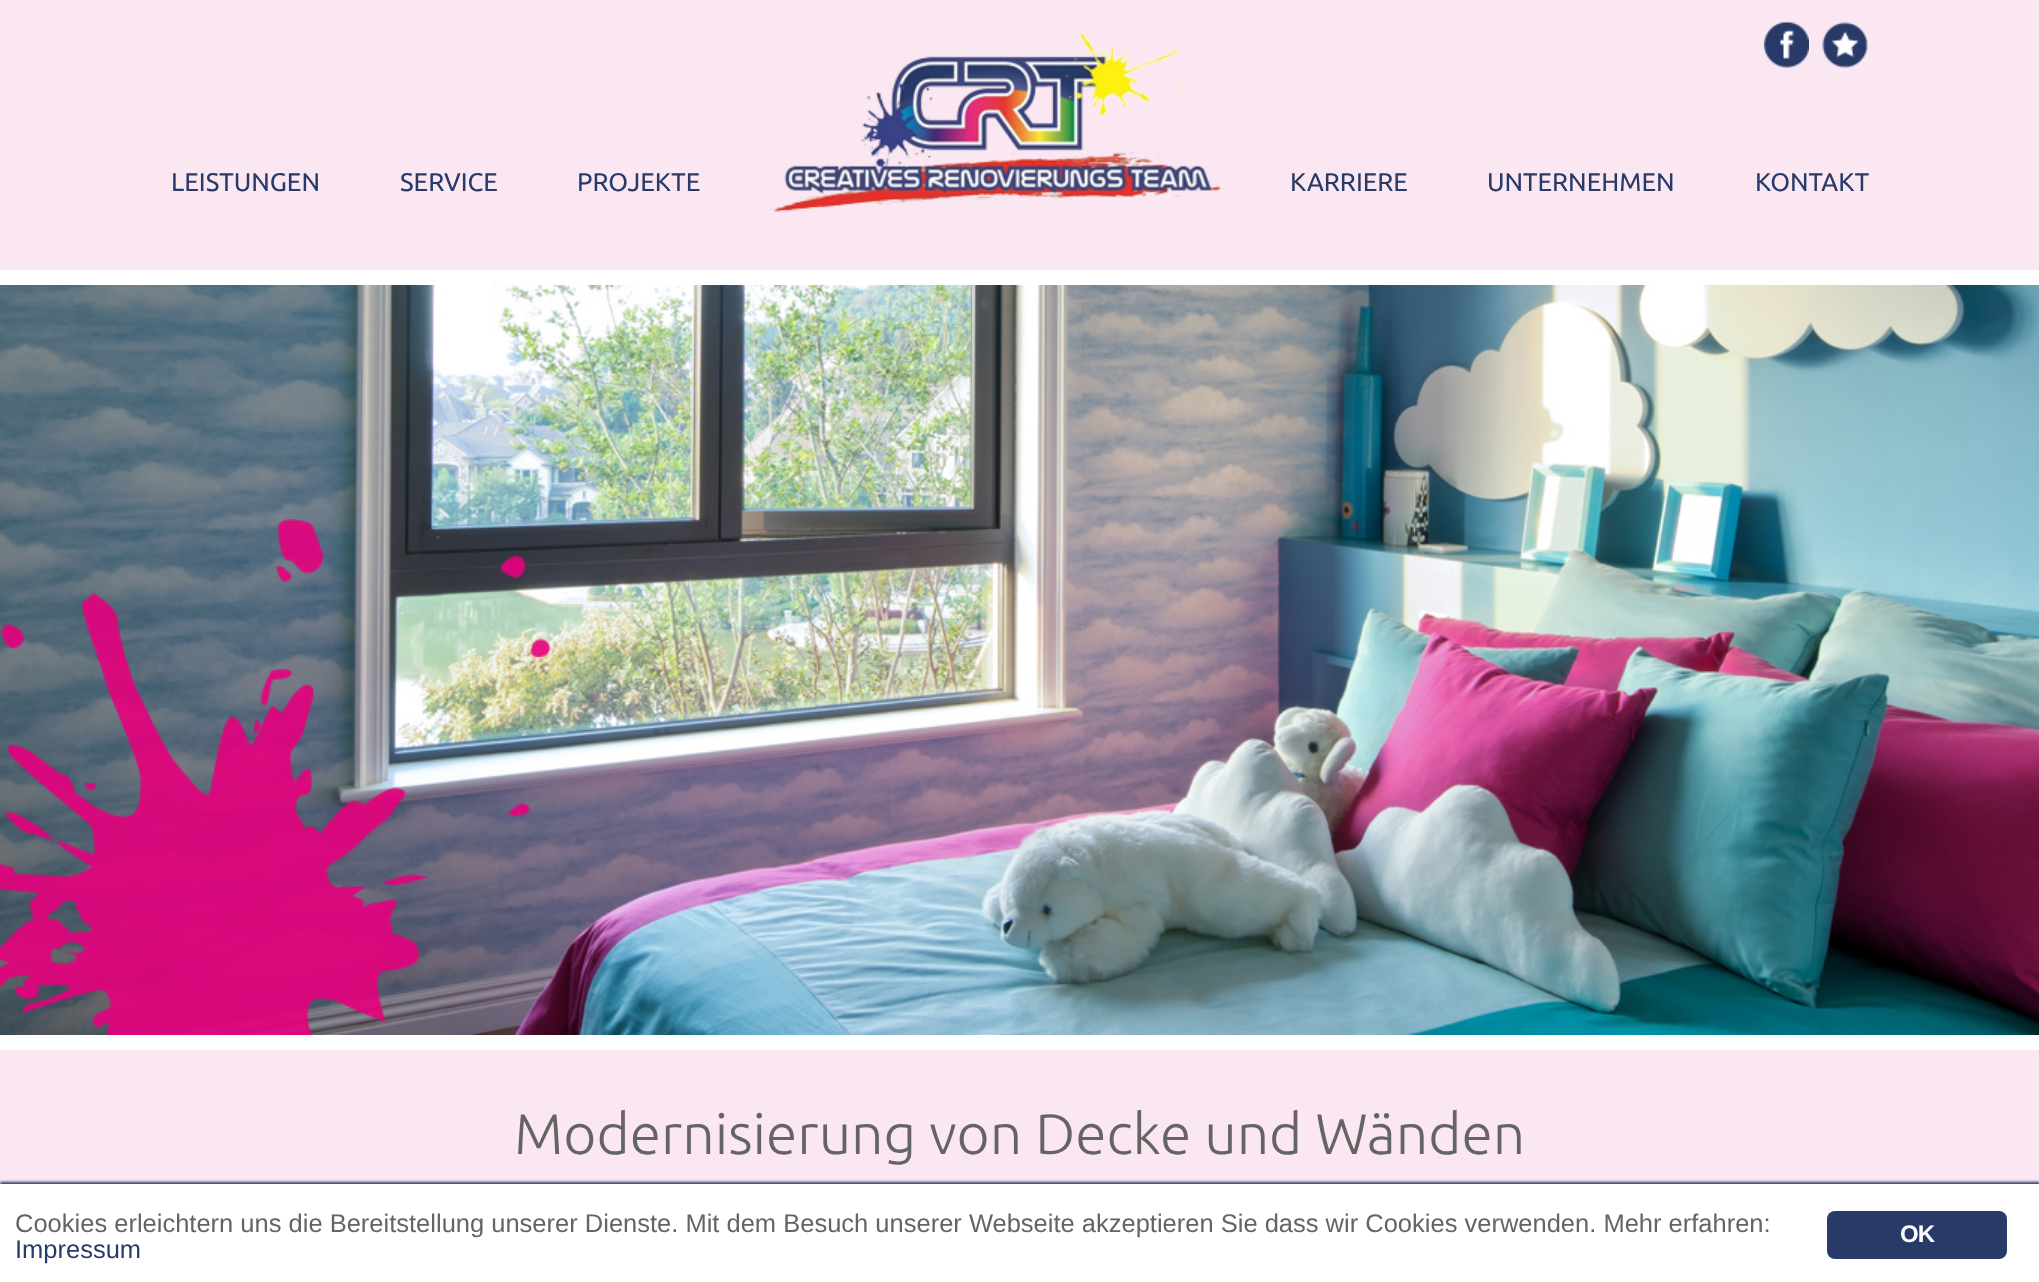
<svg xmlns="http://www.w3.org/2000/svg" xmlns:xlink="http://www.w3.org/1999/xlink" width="2039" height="1282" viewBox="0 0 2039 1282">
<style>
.cls-1{font:25.5px Ubuntu;fill:#283a68}
.cls-2{font:300 57px Ubuntu;fill:#646464}
.cls-3{font:25.5px Liberation Sans;fill:#646464}
.cls-4{font:25.5px Liberation Sans;fill:#283a68}
.cls-5{font:bold 24px Liberation Sans;letter-spacing:-1px;fill:#ffffff}
</style>
<rect width="100%" height="100%" fill="#ffffff"/>
<rect fill="#fbe7f2" x="0" y="0" width="2039" height="270"/>
<image xlink:href="image0.png" x="1764" y="22" width="45" height="46"/>
<image xlink:href="image1.png" x="1822" y="22" width="46" height="46"/>
<image xlink:href="image2.png" x="766" y="27" width="460" height="185"/>
<image xlink:href="image3.png" x="0" y="285" width="2039" height="750"/>
<image xlink:href="image4.png" x="0" y="519" width="551" height="516"/>
<rect fill="#fbe7f2" x="0" y="1050" width="2039" height="134"/>
<rect fill="#283a68" filter="blur(1.5px)" x="0" y="1182" width="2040" height="99"/>
<rect fill="#ffffff" x="0" y="1184" width="2039" height="98"/>
<rect fill="#283a68" x="1827" y="1211" width="180" height="48" rx="8"/>
<text class="cls-1" x="171" y="191">LEISTUNGEN</text>
<text class="cls-1" x="400" y="191">SERVICE</text>
<text class="cls-1" x="577" y="191">PROJEKTE</text>
<text class="cls-1" x="1290" y="191">KARRIERE</text>
<text class="cls-1" x="1487" y="191">UNTERNEHMEN</text>
<text class="cls-1" x="1755" y="191">KONTAKT</text>
<text class="cls-2" x="514" y="1154">Modernisierung von Decke und Wänden</text>
<text class="cls-3" x="15" y="1232">Cookies erleichtern uns die Bereitstellung unserer Dienste. Mit dem Besuch unserer Webseite akzeptieren Sie dass wir Cookies verwenden. Mehr erfahren:</text>
<text class="cls-4" x="15" y="1258">Impressum</text>
<text class="cls-5" x="1900" y="1242">OK</text>
</svg>
